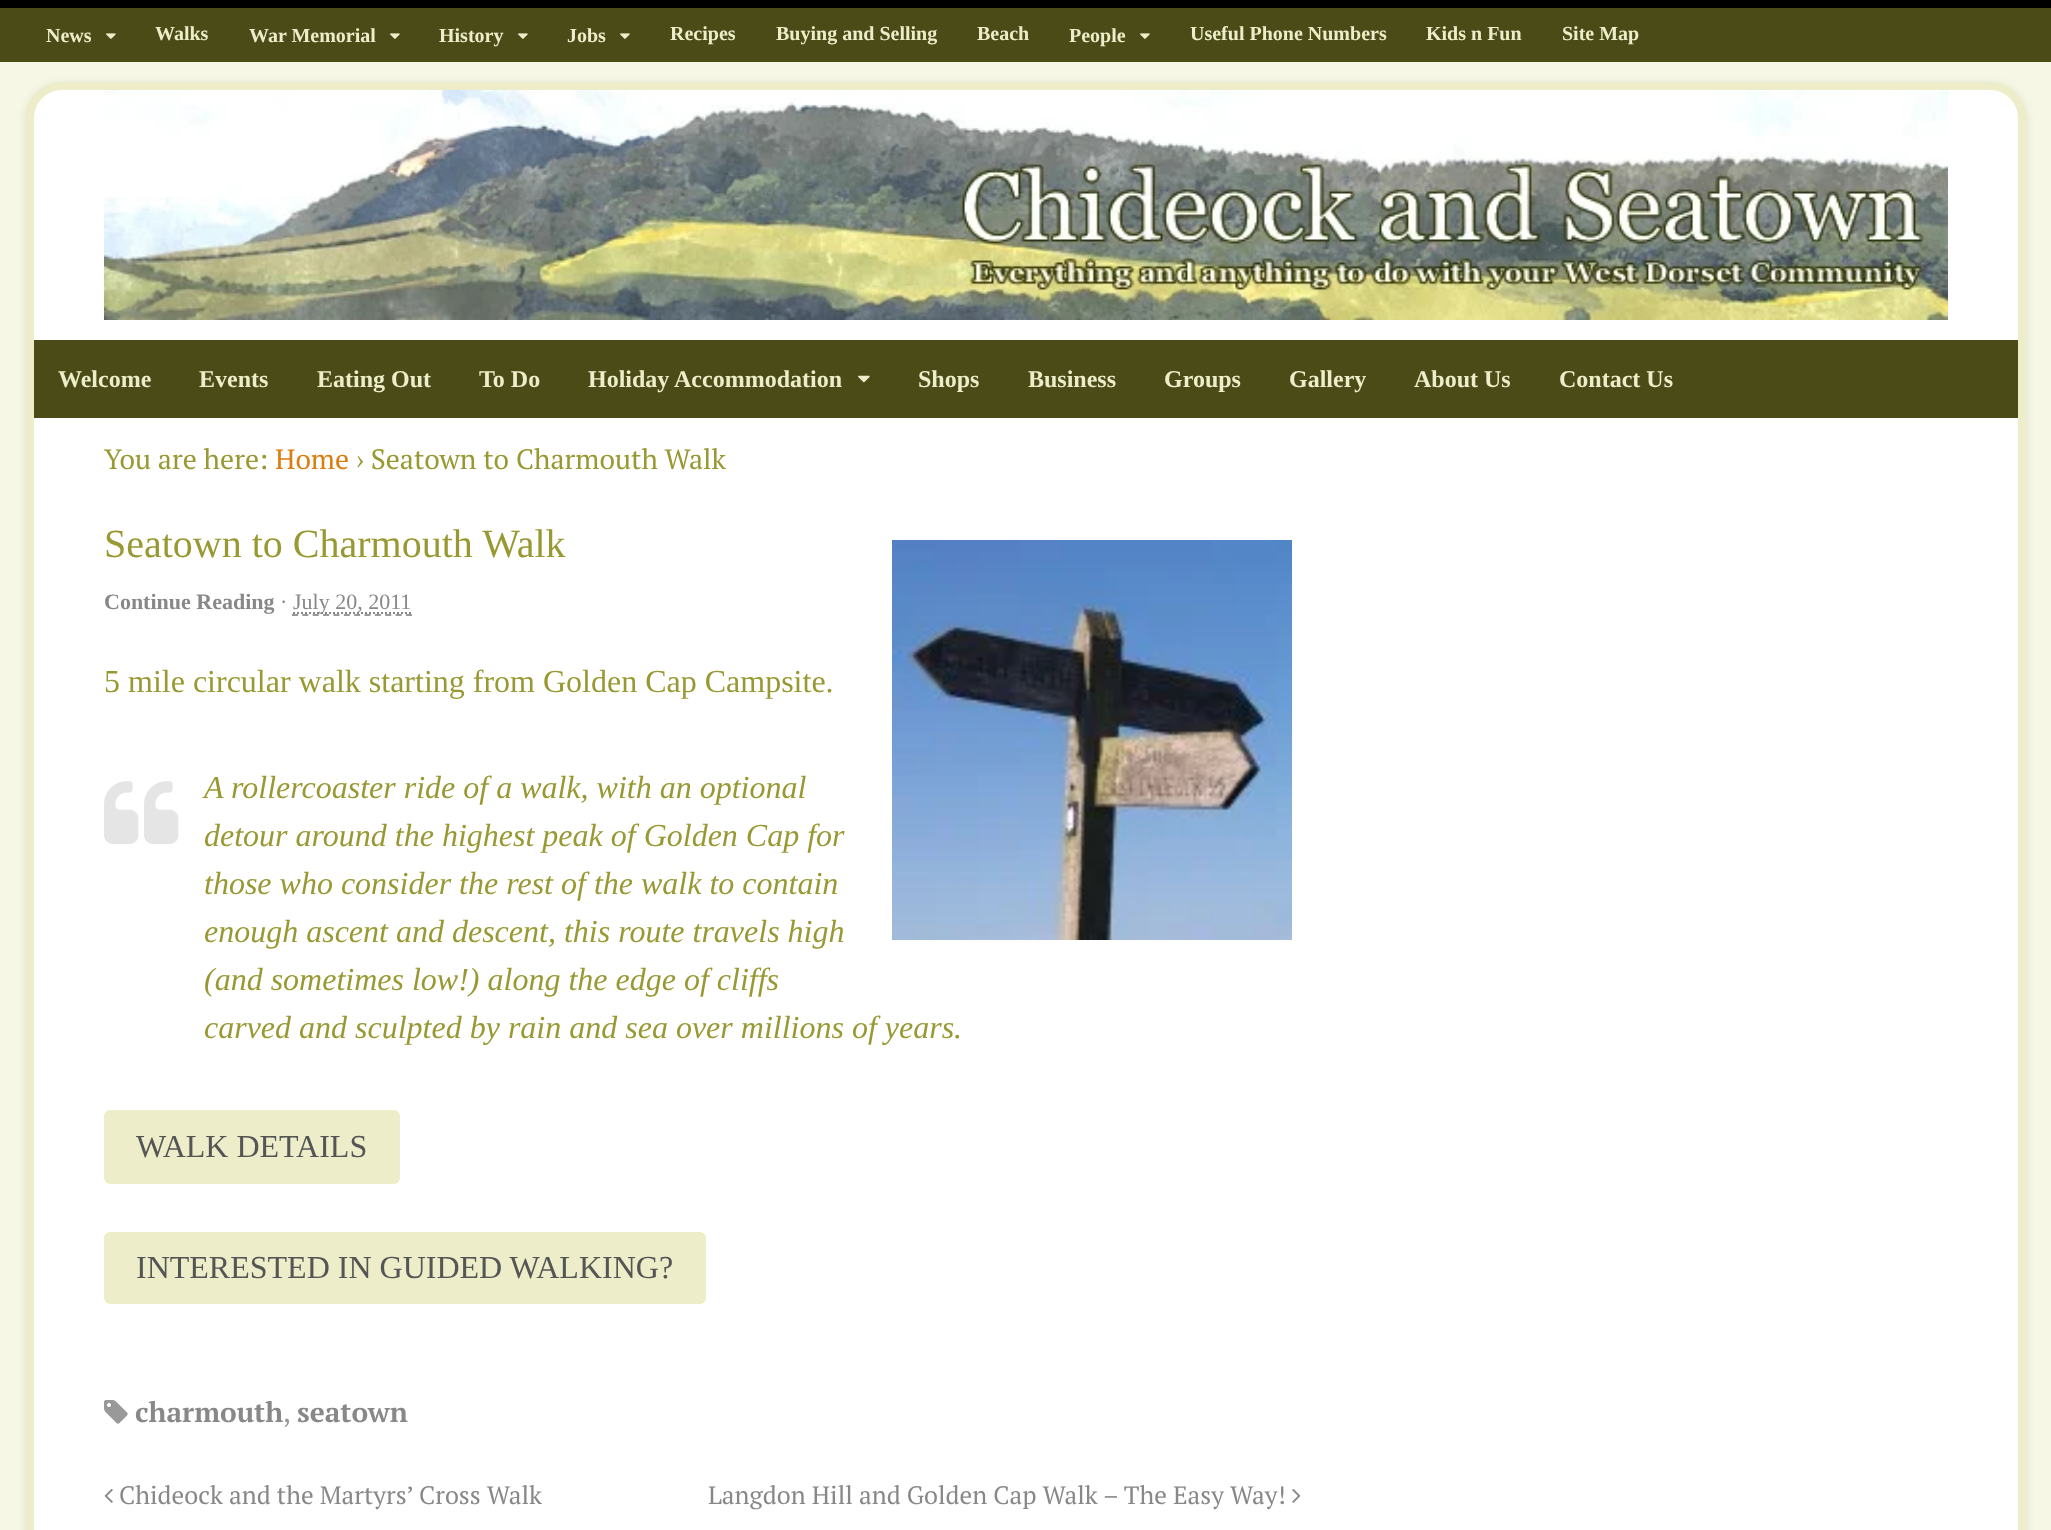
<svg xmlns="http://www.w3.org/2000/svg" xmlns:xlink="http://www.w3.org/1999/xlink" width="2051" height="1530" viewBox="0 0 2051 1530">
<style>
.cls-1{font:bold 20px Liberation Serif;fill:#ededc9}
.cls-2{font:bold 24px Liberation Serif;fill:#ededc9}
.cls-3{font:28px PT Serif;fill:#999933}
.cls-4{font:28px PT Serif;fill:#dd7d0f}
.cls-5{font:40px Liberation Serif;fill:#999933}
.cls-6{font:bold 22px Liberation Serif;fill:#888888}
.cls-7{font:22px Liberation Serif;fill:#888888}
.cls-8{font:32px Liberation Serif;fill:#999933}
.cls-9{font:italic 32px Liberation Serif;fill:#999933}
.cls-10{font:32px Liberation Serif;fill:#555555}
.cls-11{font:bold 28px PT Serif;fill:#888888}
.cls-12{font:28px PT Serif;fill:#999999}
.cls-13{font:25.2px PT Serif;fill:#888888}
</style>
<rect width="100%" height="100%" fill="#f7f7e6"/>
<rect fill="#000000" x="0" y="0" width="2051" height="8"/>
<rect fill="#4b4b18" x="0" y="8" width="2051" height="54"/>
<image xlink:href="image0.png" x="106" y="33" width="10" height="6"/>
<image xlink:href="image0.png" x="390" y="33" width="10" height="6"/>
<image xlink:href="image0.png" x="518" y="33" width="10" height="6"/>
<image xlink:href="image0.png" x="620" y="33" width="10" height="6"/>
<image xlink:href="image0.png" x="1140" y="33" width="10" height="6"/>
<rect fill="#000000" fill-opacity="0.1" filter="blur(5px)" x="26" y="84" width="2000" height="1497" rx="36"/>
<rect fill="#ffffff" stroke="#ededc9" stroke-width="8" x="30" y="86" width="1992" height="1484" rx="32"/>
<image xlink:href="image1.png" x="104" y="90" width="1844" height="230"/>
<rect fill="#4b4b18" x="34" y="340" width="1984" height="78"/>
<image xlink:href="image2.png" x="858" y="375" width="12" height="8"/>
<image xlink:href="image3.png" x="892" y="540" width="400" height="400"/>
<path fill="none" stroke="#999999" stroke-width="2" stroke-dasharray="6 4.36" d="M292 615H412"/>
<path fill="none" stroke="#868686" stroke-width="2" stroke-dasharray="2 2" d="M293 613H411.5"/>
<image xlink:href="image4.png" x="104" y="781" width="75" height="63"/>
<rect fill="#ededc9" x="104" y="1110" width="296" height="74" rx="6"/>
<rect fill="#ededc9" x="104" y="1232" width="602" height="72" rx="6"/>
<image xlink:href="image5.png" x="104" y="1400" width="24" height="24"/>
<image xlink:href="image6.png" x="104" y="1489" width="9" height="14"/>
<image xlink:href="image7.png" x="1292" y="1489" width="9" height="14"/>
<text class="cls-1" x="46" y="42">News</text>
<text class="cls-1" x="155" y="40">Walks</text>
<text class="cls-1" x="249" y="42">War Memorial</text>
<text class="cls-1" x="439" y="42">History</text>
<text class="cls-1" x="567" y="42">Jobs</text>
<text class="cls-1" x="670" y="40">Recipes</text>
<text class="cls-1" x="776" y="40">Buying and Selling</text>
<text class="cls-1" x="977" y="40">Beach</text>
<text class="cls-1" x="1069" y="42">People</text>
<text class="cls-1" x="1190" y="40">Useful Phone Numbers</text>
<text class="cls-1" x="1426" y="40">Kids n Fun</text>
<text class="cls-1" x="1562" y="40">Site Map</text>
<text class="cls-2" x="58" y="387">Welcome</text>
<text class="cls-2" x="199" y="387">Events</text>
<text class="cls-2" x="317" y="387">Eating Out</text>
<text class="cls-2" x="479" y="387">To Do</text>
<text class="cls-2" x="588" y="387">Holiday Accommodation</text>
<text class="cls-2" x="918" y="387">Shops</text>
<text class="cls-2" x="1028" y="387">Business</text>
<text class="cls-2" x="1164" y="387">Groups</text>
<text class="cls-2" x="1289" y="387">Gallery</text>
<text class="cls-2" x="1414" y="387">About Us</text>
<text class="cls-2" x="1559" y="387">Contact Us</text>
<text class="cls-3" x="104" y="469">You are here:</text>
<text class="cls-4" x="275" y="469">Home</text>
<text class="cls-3" x="356" y="469">› Seatown to Charmouth Walk</text>
<text class="cls-5" x="104" y="557">Seatown to Charmouth Walk</text>
<text class="cls-6" x="104" y="609">Continue Reading</text>
<text class="cls-7" x="280" y="609">·</text>
<text class="cls-7" x="293" y="609">July 20, 2011</text>
<text class="cls-8" x="104" y="692">5 mile circular walk starting from Golden Cap Campsite.</text>
<text class="cls-9"><tspan x="204" y="798">A rollercoaster ride of a walk, with an optional</tspan><tspan x="204" y="846">detour around the highest peak of Golden Cap for</tspan><tspan x="204" y="894">those who consider the rest of the walk to contain</tspan><tspan x="204" y="942">enough ascent and descent, this route travels high</tspan><tspan x="204" y="990">(and sometimes low!) along the edge of cliffs</tspan><tspan x="204" y="1038">carved and sculpted by rain and sea over millions of years.</tspan></text>
<text class="cls-10" x="136" y="1157">WALK DETAILS</text>
<text class="cls-10" x="136" y="1278">INTERESTED IN GUIDED WALKING?</text>
<text class="cls-11" x="135" y="1422">charmouth</text>
<text class="cls-12" x="283" y="1422">,</text>
<text class="cls-11" x="297" y="1422">seatown</text>
<text class="cls-13" x="119" y="1504">Chideock and the Martyrs’ Cross Walk</text>
<text class="cls-13" x="708" y="1504">Langdon Hill and Golden Cap Walk – The Easy Way!</text>
</svg>
